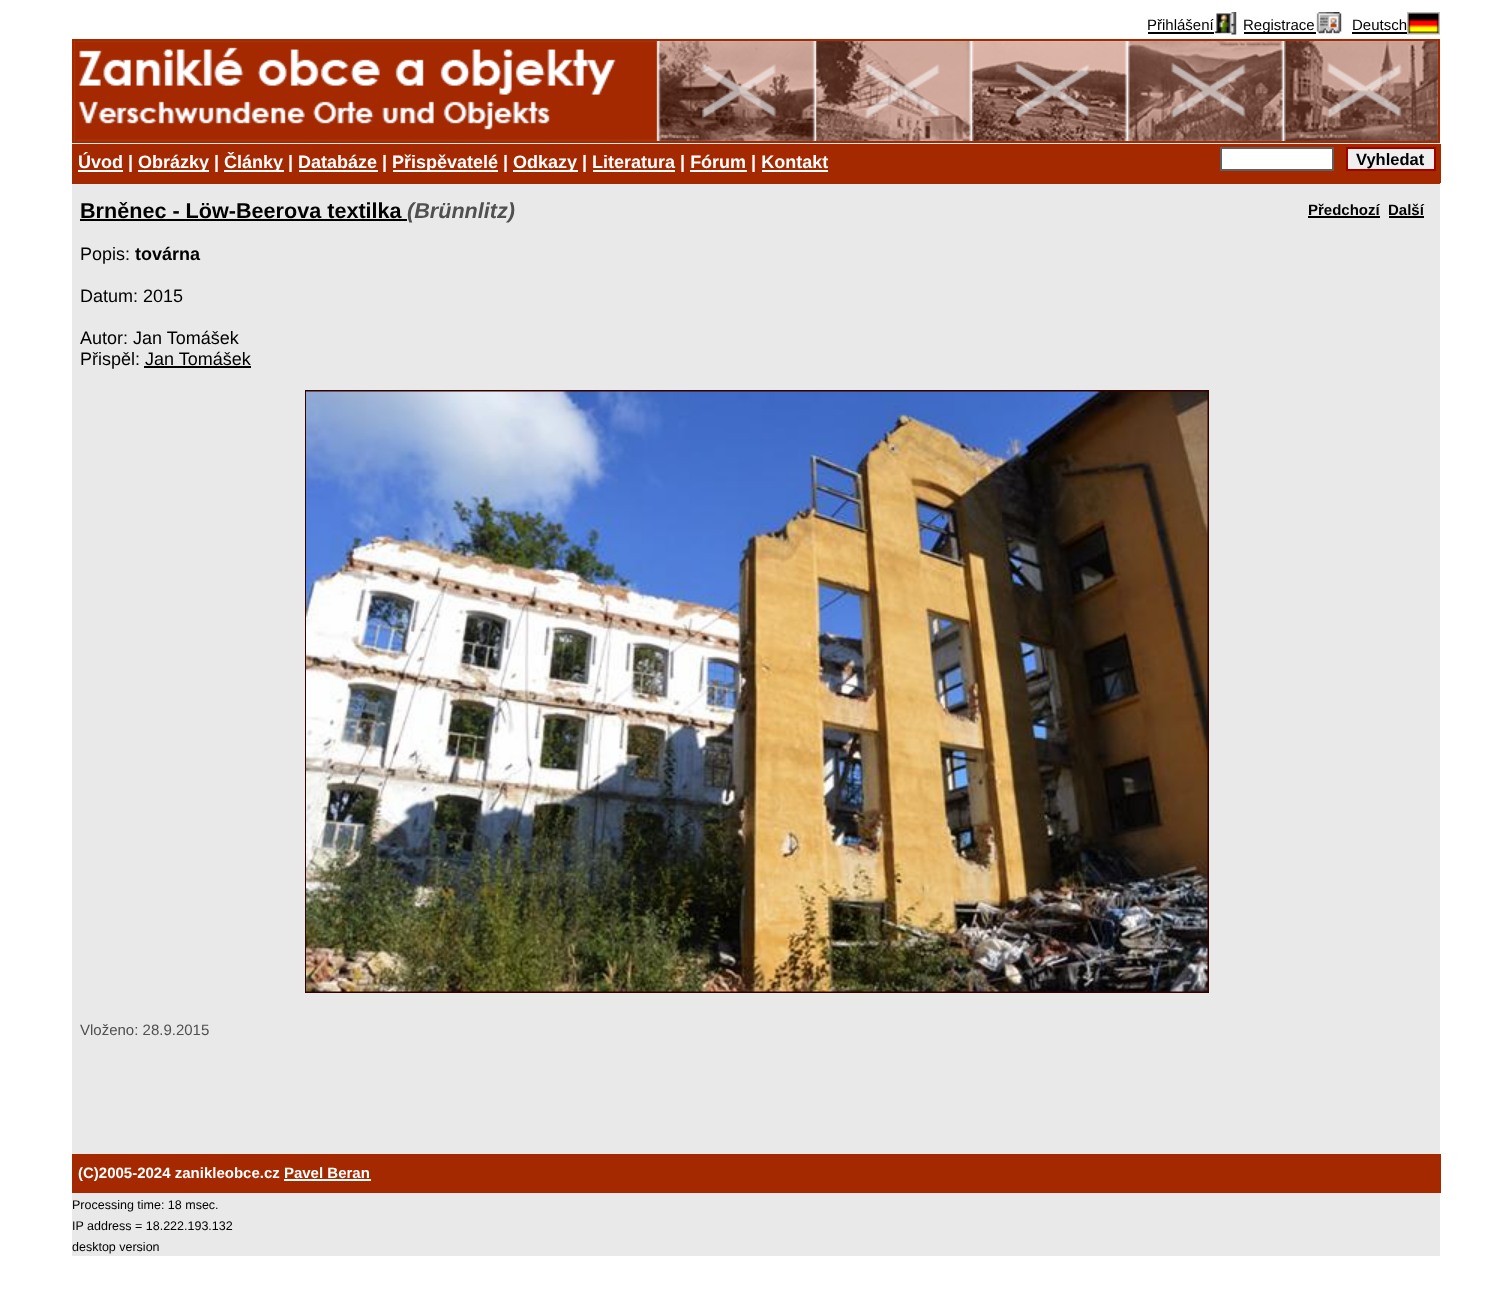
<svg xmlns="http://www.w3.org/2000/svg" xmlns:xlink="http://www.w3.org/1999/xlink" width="1511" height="1299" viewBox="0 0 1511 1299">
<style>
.cls-1{font:15px Liberation Sans;fill:#000000}
.cls-2{font:bold 18px Liberation Sans;fill:#ffffff}
.cls-3{font:bold 16.5px Liberation Sans;fill:#000000}
.cls-4{font:bold 21.6px Liberation Sans;fill:#000000}
.cls-5{font:italic bold 21.6px Liberation Sans;fill:#505050}
.cls-6{font:bold 15px Liberation Sans;fill:#000000}
.cls-7{font:18px Liberation Sans;fill:#000000}
.cls-8{font:bold 18px Liberation Sans;fill:#000000}
.cls-9{font:15px Liberation Sans;fill:#505050}
.cls-10{font:bold 15px Liberation Sans;fill:#ffffff}
.cls-11{font:12.5px Liberation Sans;fill:#000000}
</style>
<rect width="100%" height="100%" fill="#ffffff"/>
<rect fill="#e9e9e9" x="72" y="143" width="1368" height="1113"/>
<rect fill="#000000" x="1148" y="32" width="66" height="2"/>
<image xlink:href="image0.png" x="1214" y="12" width="23" height="23"/>
<rect fill="#000000" x="1244" y="32" width="72" height="2"/>
<image xlink:href="image1.png" x="1316" y="12" width="26" height="22"/>
<rect fill="#000000" x="1352" y="32" width="55" height="2"/>
<image xlink:href="image2.png" x="1407" y="12" width="33" height="23"/>
<image xlink:href="image3.png" x="74" y="41" width="1364" height="100"/>
<rect fill="none" stroke="#a42900" stroke-width="2" x="73" y="40" width="1366" height="102"/>
<rect fill="#a42900" x="72" y="144" width="1367" height="38"/>
<rect fill="#a42900" x="1439" y="144" width="2" height="39"/>
<rect fill="#a42900" x="72" y="182" width="1368" height="2"/>
<rect fill="#ffffff" x="78" y="170" width="45" height="2"/>
<rect fill="#ffffff" x="138" y="170" width="71" height="2"/>
<rect fill="#ffffff" x="224" y="170" width="60" height="2"/>
<rect fill="#ffffff" x="393" y="170" width="105" height="2"/>
<rect fill="#ffffff" x="513" y="170" width="65" height="2"/>
<rect fill="#ffffff" x="299" y="170" width="79" height="2"/>
<rect fill="#ffffff" x="593" y="170" width="82" height="2"/>
<rect fill="#ffffff" x="690" y="170" width="57" height="2"/>
<rect fill="#ffffff" x="762" y="170" width="66" height="2"/>
<rect fill="#ffffff" stroke="#606060" stroke-width="2" x="1221" y="148" width="112" height="22"/>
<rect fill="#efefef" stroke="#a00000" stroke-width="2" x="1347" y="148" width="88" height="22"/>
<rect fill="#000000" x="80" y="219" width="327" height="2"/>
<rect fill="#000000" x="1308" y="216" width="72" height="2"/>
<rect fill="#000000" x="1389" y="216" width="35" height="2"/>
<rect fill="#000000" x="144" y="366" width="107" height="2"/>
<rect fill="none" stroke="#330000" stroke-width="2" x="306" y="391" width="902" height="601"/>
<image xlink:href="image4.png" x="306" y="391" width="902" height="601"/>
<rect fill="#a42900" x="72" y="1154" width="1369" height="39"/>
<rect fill="#ffffff" x="284" y="1179" width="87" height="2"/>
<text class="cls-1" x="1147" y="30">Přihlášení</text>
<text class="cls-1" x="1243" y="30">Registrace</text>
<text class="cls-1" x="1352" y="30">Deutsch</text>
<text class="cls-2" x="78" y="168">Úvod |</text>
<text class="cls-2" x="138" y="168">Obrázky |</text>
<text class="cls-2" x="224" y="168">Články | Databáze |</text>
<text class="cls-2" x="392" y="168">Přispěvatelé |</text>
<text class="cls-2" x="513" y="168">Odkazy | Literatura | Fórum | Kontakt</text>
<text class="cls-3" x="1356" y="165">Vyhledat</text>
<text class="cls-4" x="80" y="218">Brněnec - Löw-Beerova textilka</text>
<text class="cls-5" x="407" y="218">(Brünnlitz)</text>
<text class="cls-6" x="1308" y="215">Předchozí</text>
<text class="cls-6" x="1388" y="215">Další</text>
<text class="cls-7" x="80" y="260">Popis:</text>
<text class="cls-8" x="135" y="260">továrna</text>
<text class="cls-7" x="80" y="302">Datum: 2015</text>
<text class="cls-7"><tspan x="80" y="344">Autor: Jan Tomášek</tspan><tspan x="80" y="365">Přispěl: Jan Tomášek</tspan></text>
<text class="cls-9" x="80" y="1035">Vloženo: 28.9.2015</text>
<text class="cls-10" x="78" y="1178">(C)2005-2024 zanikleobce.cz Pavel Beran</text>
<text class="cls-11"><tspan x="72" y="1209">Processing time: 18 msec.</tspan><tspan x="72" y="1230">IP address = 18.222.193.132</tspan><tspan x="72" y="1251">desktop version</tspan></text>
</svg>
